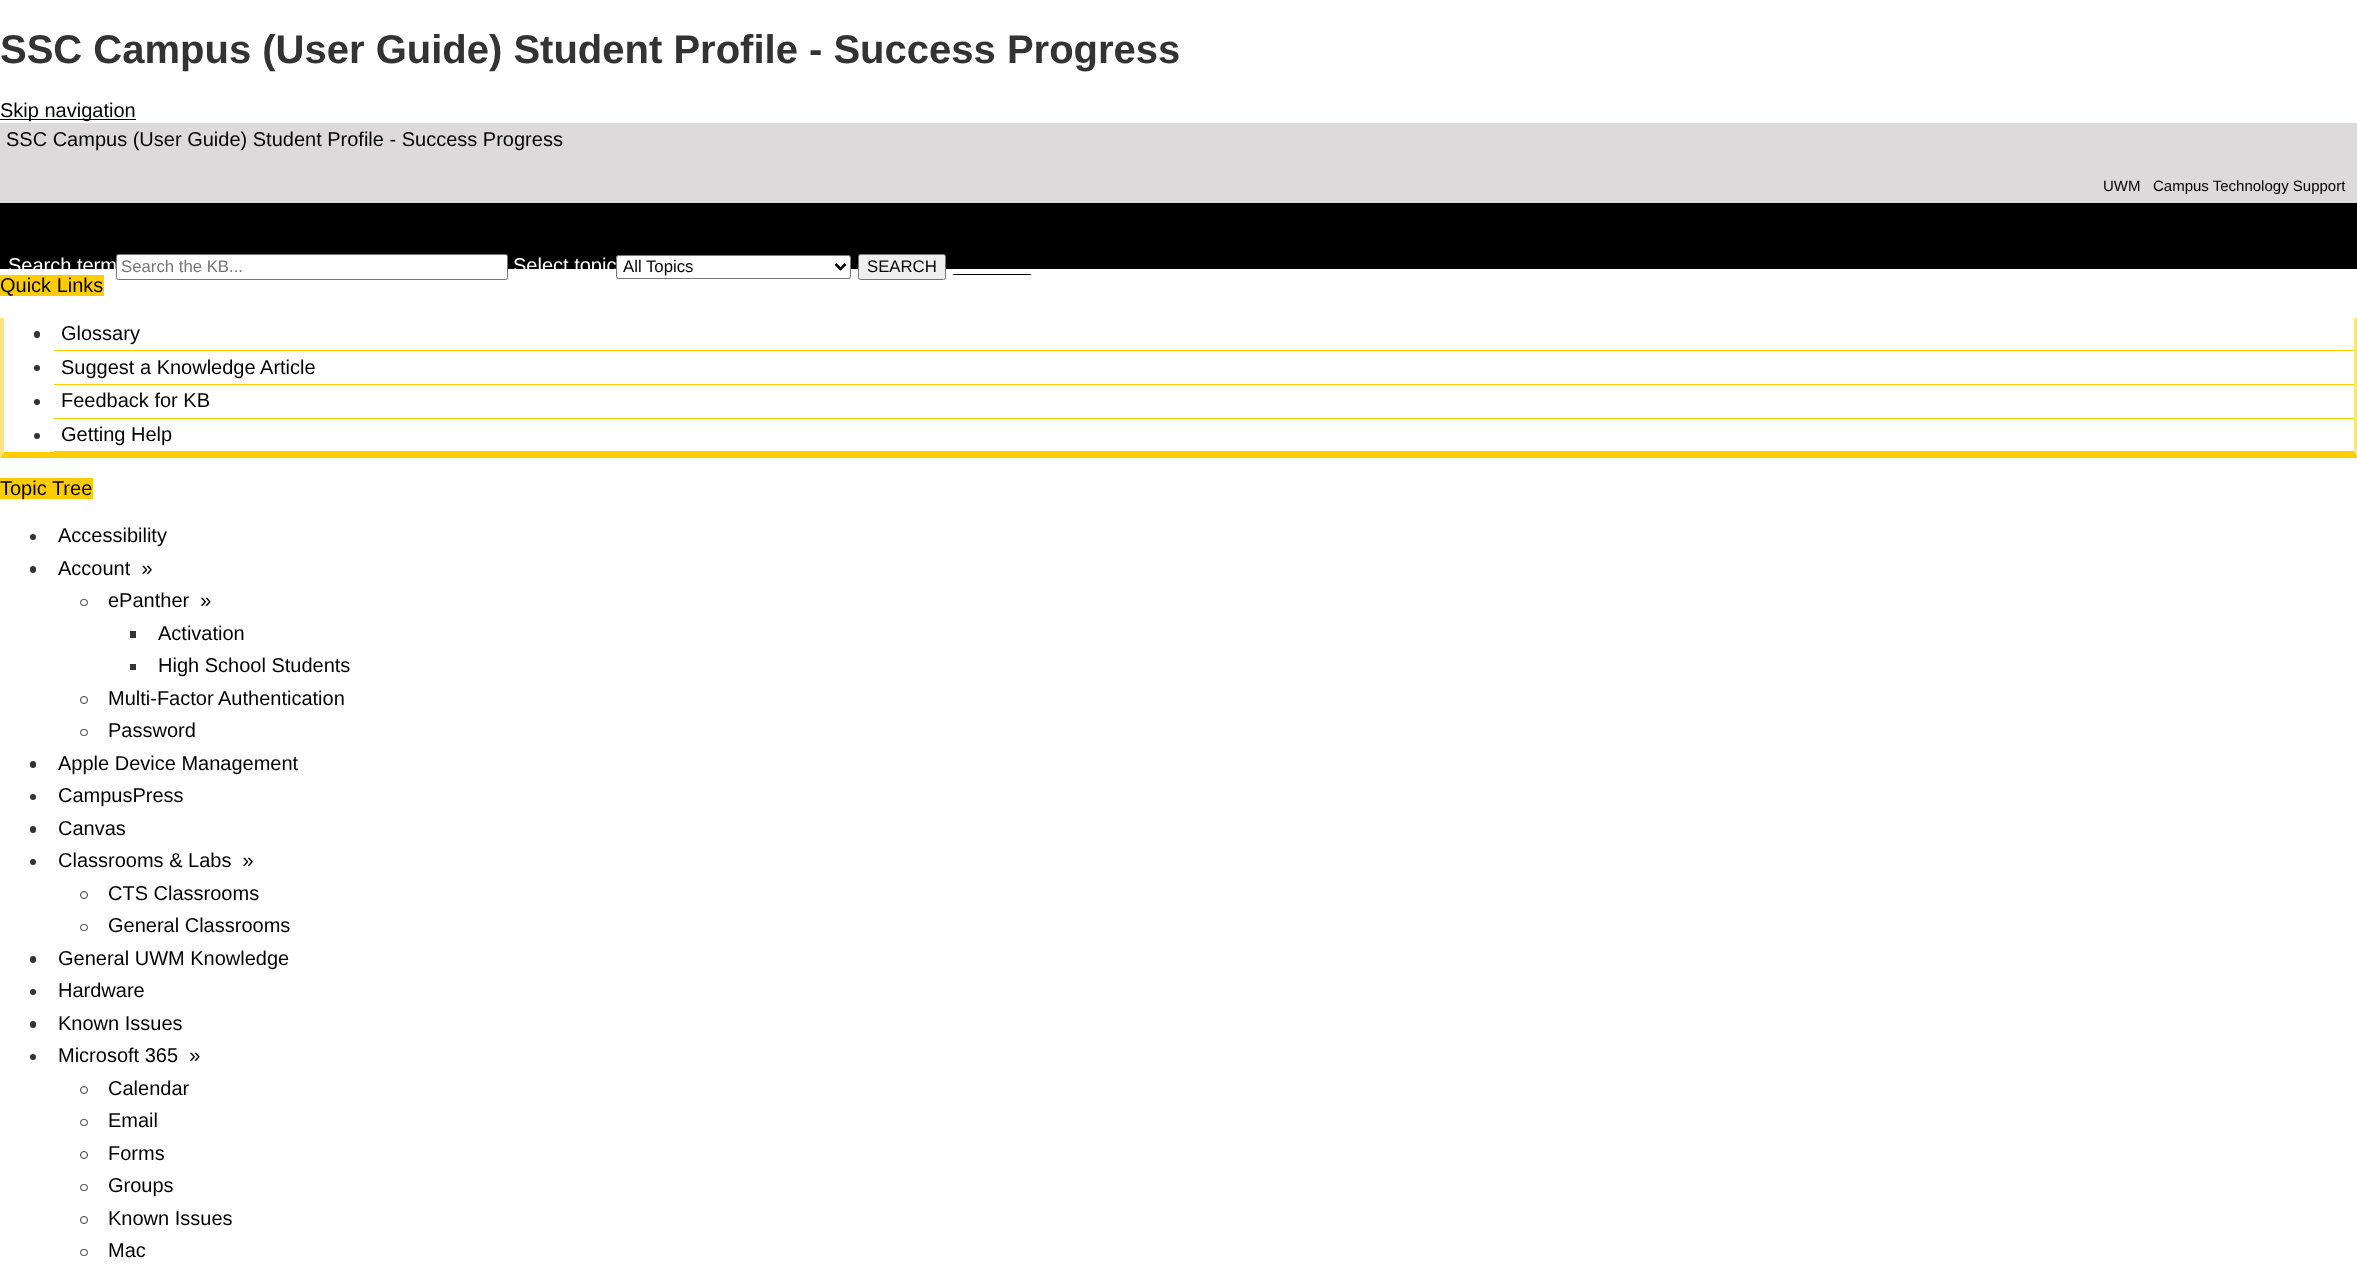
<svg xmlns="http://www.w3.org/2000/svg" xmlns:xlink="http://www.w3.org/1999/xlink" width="2357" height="1277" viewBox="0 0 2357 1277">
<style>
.cls-1{font:bold 40px Liberation Sans;fill:#333333}
.cls-2{font:20px Liberation Sans;fill:#000000}
.cls-3{font:15px Liberation Sans;fill:#000000}
.cls-4{font:20px Liberation Sans;fill:#ffffff}
.cls-5{font:16.75px Liberation Sans;fill:#757575}
.cls-6{font:16.75px Liberation Sans;fill:#000000}
</style>
<rect width="100%" height="100%" fill="#ffffff"/>
<rect fill="#000000" x="0" y="119" width="136" height="1"/>
<rect fill="#dcdada" x="0" y="123" width="2357" height="80"/>
<rect fill="#000000" x="0" y="203" width="2357" height="66"/>
<rect fill="#ffffff" stroke="#767676" x="116.5" y="254.5" width="391" height="25" rx="2"/>
<rect fill="#ffffff" stroke="#767676" x="616.5" y="255.5" width="234" height="23" rx="2"/>
<path fill="none" stroke="#000000" stroke-width="2.5" d="M835.5 264L840.5 269L845.5 264"/>
<rect fill="#efefef" stroke="#767676" x="858.5" y="254.5" width="87" height="25" rx="2"/>
<rect fill="#000000" x="953" y="274" width="78" height="1"/>
<rect fill="#ffcc00" x="0" y="275" width="104" height="21"/>
<path fill="#ffe57e" d="M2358 318V458L2354 452V318Z"/>
<path fill="#ffcc00" d="M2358 458H0L4 452H2354Z"/>
<path fill="#ffe57e" d="M0 458V318H4V452Z"/>
<rect fill="#ffcc00" x="54" y="350" width="2300" height="1"/>
<rect fill="#333333" x="34" y="331" width="6" height="7" rx="3"/>
<rect fill="#ffcc00" x="54" y="384" width="2300" height="1"/>
<circle fill="#333333" cx="37" cy="368" r="3"/>
<rect fill="#ffcc00" x="54" y="418" width="2300" height="1"/>
<circle fill="#333333" cx="37" cy="402" r="3"/>
<rect fill="#ffcc00" x="54" y="451" width="2300" height="1"/>
<circle fill="#333333" cx="37" cy="436" r="3"/>
<rect fill="#ffcc00" x="0" y="478" width="93" height="21"/>
<circle fill="#333333" cx="33" cy="537" r="3"/>
<rect fill="#333333" x="30" y="566" width="6" height="7" rx="3"/>
<rect fill="none" stroke="#333333" x="80.5" y="599.5" width="7" height="6" rx="3"/>
<rect fill="#333333" x="130" y="631" width="6" height="7"/>
<rect fill="#333333" x="130" y="664" width="6" height="6"/>
<circle fill="none" stroke="#333333" cx="84" cy="700" r="3.5"/>
<rect fill="none" stroke="#333333" x="80.5" y="729.5" width="7" height="6" rx="3"/>
<rect fill="#333333" x="30" y="761" width="6" height="7" rx="3"/>
<circle fill="#333333" cx="33" cy="797" r="3"/>
<rect fill="#333333" x="30" y="826" width="6" height="7" rx="3"/>
<circle fill="#333333" cx="33" cy="862" r="3"/>
<circle fill="none" stroke="#333333" cx="84" cy="895" r="3.5"/>
<rect fill="none" stroke="#333333" x="80.5" y="924.5" width="7" height="6" rx="3"/>
<rect fill="#333333" x="30" y="956" width="6" height="7" rx="3"/>
<circle fill="#333333" cx="33" cy="992" r="3"/>
<rect fill="#333333" x="30" y="1021" width="6" height="7" rx="3"/>
<circle fill="#333333" cx="33" cy="1057" r="3"/>
<circle fill="none" stroke="#333333" cx="84" cy="1090" r="3.5"/>
<rect fill="none" stroke="#333333" x="80.5" y="1119.5" width="7" height="6" rx="3"/>
<circle fill="none" stroke="#333333" cx="84" cy="1155" r="3.5"/>
<rect fill="none" stroke="#333333" x="80.5" y="1184.5" width="7" height="6" rx="3"/>
<circle fill="none" stroke="#333333" cx="84" cy="1220" r="3.5"/>
<rect fill="none" stroke="#333333" x="80.5" y="1249.5" width="7" height="6" rx="3"/>
<text class="cls-1" x="0" y="63">SSC Campus (User Guide) Student Profile - Success Progress</text>
<text class="cls-2" x="0" y="117">Skip navigation</text>
<text class="cls-2" x="6" y="146">SSC Campus (User Guide) Student Profile - Success Progress</text>
<text class="cls-3" x="2103" y="191">UWM</text>
<text class="cls-3" x="2153" y="191">Campus Technology Support</text>
<text class="cls-4" x="8" y="272">Search term</text>
<text class="cls-5" x="121" y="272">Search the KB...</text>
<text class="cls-4" x="513" y="272">Select topic</text>
<text class="cls-6" x="623" y="272">All Topics</text>
<text class="cls-6" x="867" y="272">SEARCH</text>
<text class="cls-2" x="0" y="292">Quick Links</text>
<text class="cls-2"><tspan x="61" y="340">Glossary</tspan><tspan x="61" y="374">Suggest a Knowledge Article</tspan><tspan x="61" y="407">Feedback for KB</tspan><tspan x="61" y="441">Getting Help</tspan></text>
<text class="cls-2" x="0" y="495">Topic Tree</text>
<text class="cls-2" xml:space="preserve"><tspan x="58" y="542">Accessibility</tspan><tspan x="58" y="575">Account  »</tspan></text>
<text class="cls-2" xml:space="preserve" x="108" y="607">ePanther  »</text>
<text class="cls-2"><tspan x="158" y="640">Activation</tspan><tspan x="158" y="672">High School Students</tspan></text>
<text class="cls-2"><tspan x="108" y="705">Multi-Factor Authentication</tspan><tspan x="108" y="737">Password</tspan></text>
<text class="cls-2" xml:space="preserve"><tspan x="58" y="770">Apple Device Management</tspan><tspan x="58" y="802">CampusPress</tspan><tspan x="58" y="835">Canvas</tspan><tspan x="58" y="867">Classrooms &amp; Labs  »</tspan></text>
<text class="cls-2"><tspan x="108" y="900">CTS Classrooms</tspan><tspan x="108" y="932">General Classrooms</tspan></text>
<text class="cls-2" xml:space="preserve"><tspan x="58" y="965">General UWM Knowledge</tspan><tspan x="58" y="997">Hardware</tspan><tspan x="58" y="1030">Known Issues</tspan><tspan x="58" y="1062">Microsoft 365  »</tspan></text>
<text class="cls-2"><tspan x="108" y="1095">Calendar</tspan><tspan x="108" y="1127">Email</tspan><tspan x="108" y="1160">Forms</tspan><tspan x="108" y="1192">Groups</tspan><tspan x="108" y="1225">Known Issues</tspan><tspan x="108" y="1257">Mac</tspan></text>
</svg>
